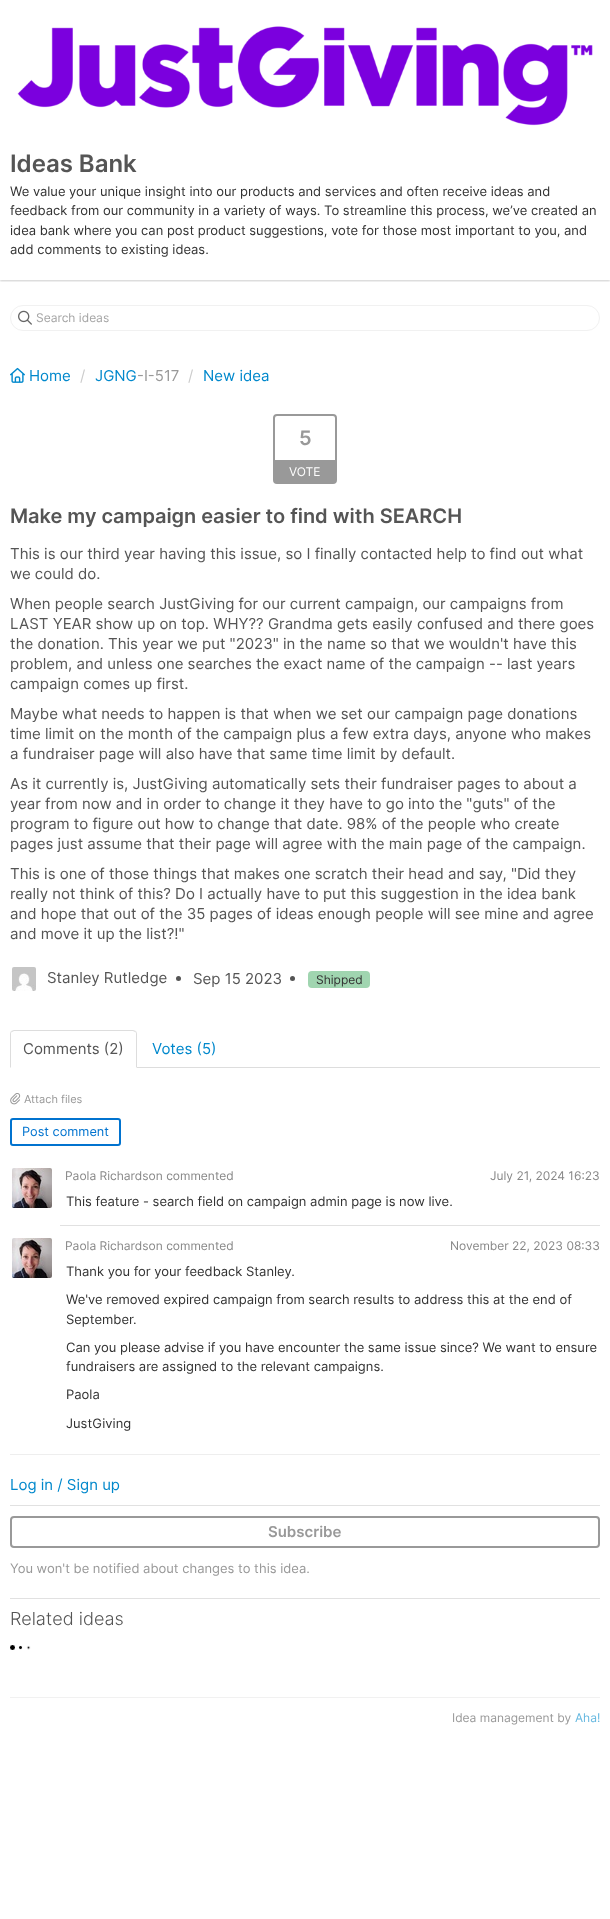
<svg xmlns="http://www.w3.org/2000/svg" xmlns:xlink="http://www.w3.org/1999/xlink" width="610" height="1919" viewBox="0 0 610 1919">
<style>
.cls-1{font:600 24px Inter;fill:#555555}
.cls-2{font:13px Inter;fill:#333333}
.cls-3{font:12px Inter;fill:#a5a5a5}
.cls-4{font:15px Inter;fill:#0088cc}
.cls-5{font:15px Inter;fill:#cccccc}
.cls-6{font:15px Inter;fill:#999999}
.cls-7{font:600 20px Inter;fill:#999999}
.cls-8{font:12px Inter;fill:#ffffff}
.cls-9{font:600 20px Inter;fill:#555555}
.cls-10{font:15px Inter;fill:#555555}
.cls-11{font:12px Inter;fill:#333333}
.cls-12{font:11px Inter;fill:#999999}
.cls-13{font:12.75px Inter;fill:#0173cf}
.cls-14{font:12px Inter;fill:#888888}
.cls-15{font:600 15px Inter;fill:#999999}
.cls-16{font:13px Inter;fill:#999999}
.cls-17{font:300 18px Inter;fill:#555555}
.cls-18{font:12px Inter;fill:#999999}
.cls-19{font:12px Inter;fill:#66b8e0}
</style>
<defs>
<clipPath id="clip1"><rect x="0" y="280" width="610" height="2"/></clipPath>
</defs>
<rect width="100%" height="100%" fill="#ffffff"/>
<g clip-path="url(#clip1)">
<rect fill="#000000" fill-opacity="0.2" filter="blur(1px)" x="0" y="1" width="610" height="280"/>
</g>
<image xlink:href="image0.png" x="17" y="26" width="576" height="100"/>
<rect fill="none" stroke="#f1f1f1" x="10.5" y="305.5" width="589" height="25" rx="12.5"/>
<image xlink:href="image1.png" x="18" y="310" width="14" height="15"/>
<image xlink:href="image2.png" x="10" y="367" width="15" height="16"/>
<rect fill="none" stroke="#999999" stroke-width="2" x="274" y="415" width="62" height="68" rx="3"/>
<rect fill="#999999" x="275" y="460" width="60" height="22"/>
<rect fill="#eeeeee" x="10" y="1454" width="590" height="1"/>
<image xlink:href="image3.png" x="12" y="967" width="24" height="24"/>
<circle fill="#555555" cx="178.5" cy="978.5" r="2.5"/>
<circle fill="#555555" cx="292.5" cy="978.5" r="2.5"/>
<rect fill="#a0d5b0" x="308" y="971" width="62" height="17" rx="4"/>
<rect fill="#dddddd" x="137" y="1067" width="463" height="1"/>
<path fill="#dddddd" d="M14 1030L11 1031L12 1032L14 1031H133L135 1032L136 1031L133 1030Z"/>
<path fill="#dddddd" d="M137 1068V1034C137 1033 136.5 1032 136 1031L135 1032C136 1032 136 1033 136 1034V1067Z"/>
<path fill="#dddddd" d="M10 1068L11 1067V1034C11 1033 11 1032 12 1032L11 1031C10.5 1032 10 1033 10 1034Z"/>
<image xlink:href="image4.png" x="10" y="1093" width="11" height="12"/>
<rect fill="none" stroke="#0173cf" stroke-width="2" x="11" y="1119" width="109" height="26" rx="2"/>
<image xlink:href="image5.png" x="12" y="1168" width="40" height="40"/>
<rect fill="#e1e1e1" x="60" y="1225" width="540" height="1"/>
<image xlink:href="image5.png" x="12" y="1238" width="40" height="40"/>
<rect fill="#e1e1e1" x="10" y="1505" width="590" height="1"/>
<rect fill="#e1e1e1" x="10" y="1598" width="590" height="1"/>
<rect fill="none" stroke="#999999" stroke-width="2" x="11" y="1517" width="588" height="30" rx="3"/>
<image xlink:href="image6.png" x="10" y="1645" width="21" height="5"/>
<rect fill="#f1f1f1" x="10" y="1697" width="590" height="1"/>
<text class="cls-1" x="10" y="172">Ideas Bank</text>
<text class="cls-2"><tspan x="10" y="196">We value your unique insight into our products and services and often receive ideas and</tspan><tspan x="10" y="215">feedback from our community in a variety of ways. To streamline this process, we’ve created an</tspan><tspan x="10" y="235">idea bank where you can post product suggestions, vote for those most important to you, and</tspan><tspan x="10" y="254">add comments to existing ideas.</tspan></text>
<text class="cls-3" x="36" y="322">Search ideas</text>
<text class="cls-4" x="29" y="381">Home</text>
<text class="cls-5" x="80" y="381">/</text>
<text class="cls-4" x="95" y="381">JGNG</text>
<text class="cls-6" x="137" y="381">-I-517</text>
<text class="cls-5" x="188" y="381">/</text>
<text class="cls-4" x="203" y="381">New idea</text>
<text class="cls-7" x="299" y="445">5</text>
<text class="cls-8" x="289" y="476">VOTE</text>
<text class="cls-9" x="10" y="523">Make my campaign easier to find with SEARCH</text>
<text class="cls-10"><tspan x="10" y="559">This is our third year having this issue, so I finally contacted help to find out what</tspan><tspan x="10" y="579">we could do.</tspan></text>
<text class="cls-10"><tspan x="10" y="609">When people search JustGiving for our current campaign, our campaigns from</tspan><tspan x="10" y="629">LAST YEAR show up on top. WHY?? Grandma gets easily confused and there goes</tspan><tspan x="10" y="649">the donation. This year we put "2023" in the name so that we wouldn't have this</tspan><tspan x="10" y="669">problem, and unless one searches the exact name of the campaign -- last years</tspan><tspan x="10" y="689">campaign comes up first.</tspan></text>
<text class="cls-10"><tspan x="10" y="719">Maybe what needs to happen is that when we set our campaign page donations</tspan><tspan x="10" y="739">time limit on the month of the campaign plus a few extra days, anyone who makes</tspan><tspan x="10" y="759">a fundraiser page will also have that same time limit by default.</tspan></text>
<text class="cls-10"><tspan x="10" y="789">As it currently is, JustGiving automatically sets their fundraiser pages to about a</tspan><tspan x="10" y="809">year from now and in order to change it they have to go into the "guts" of the</tspan><tspan x="10" y="829">program to figure out how to change that date. 98% of the people who create</tspan><tspan x="10" y="849">pages just assume that their page will agree with the main page of the campaign.</tspan></text>
<text class="cls-10"><tspan x="10" y="879">This is one of those things that makes one scratch their head and say, "Did they</tspan><tspan x="10" y="899">really not think of this? Do I actually have to put this suggestion in the idea bank</tspan><tspan x="10" y="919">and hope that out of the 35 pages of ideas enough people will see mine and agree</tspan><tspan x="10" y="939">and move it up the list?!"</tspan></text>
<text class="cls-10" x="47" y="983">Stanley Rutledge</text>
<text class="cls-10" x="193" y="984">Sep 15 2023</text>
<text class="cls-11" x="316" y="984">Shipped</text>
<text class="cls-10" x="23" y="1054">Comments (2)</text>
<text class="cls-4" x="152" y="1054">Votes (5)</text>
<text class="cls-12" x="24" y="1103">Attach files</text>
<text class="cls-13" x="22" y="1136">Post comment</text>
<text class="cls-14" x="65" y="1180">Paola Richardson commented</text>
<text class="cls-14" x="490" y="1180">July 21, 2024 16:23</text>
<text class="cls-2" x="66" y="1206">This feature - search field on campaign admin page is now live.</text>
<text class="cls-14" x="65" y="1250">Paola Richardson commented</text>
<text class="cls-14" x="450" y="1250">November 22, 2023 08:33</text>
<text class="cls-2" x="66" y="1276">Thank you for your feedback Stanley.</text>
<text class="cls-2"><tspan x="66" y="1304">We've removed expired campaign from search results to address this at the end of</tspan><tspan x="66" y="1324">September.</tspan></text>
<text class="cls-2"><tspan x="66" y="1352">Can you please advise if you have encounter the same issue since? We want to ensure</tspan><tspan x="66" y="1371">fundraisers are assigned to the relevant campaigns.</tspan></text>
<text class="cls-2" x="66" y="1399">Paola</text>
<text class="cls-2" x="66" y="1428">JustGiving</text>
<text class="cls-4" x="10" y="1490">Log in / Sign up</text>
<text class="cls-15" x="268" y="1537">Subscribe</text>
<text class="cls-16" x="10" y="1573">You won't be notified about changes to this idea.</text>
<text class="cls-17" x="10" y="1625">Related ideas</text>
<text class="cls-18" x="452" y="1722">Idea management by</text>
<text class="cls-19" x="575" y="1722">Aha!</text>
</svg>
